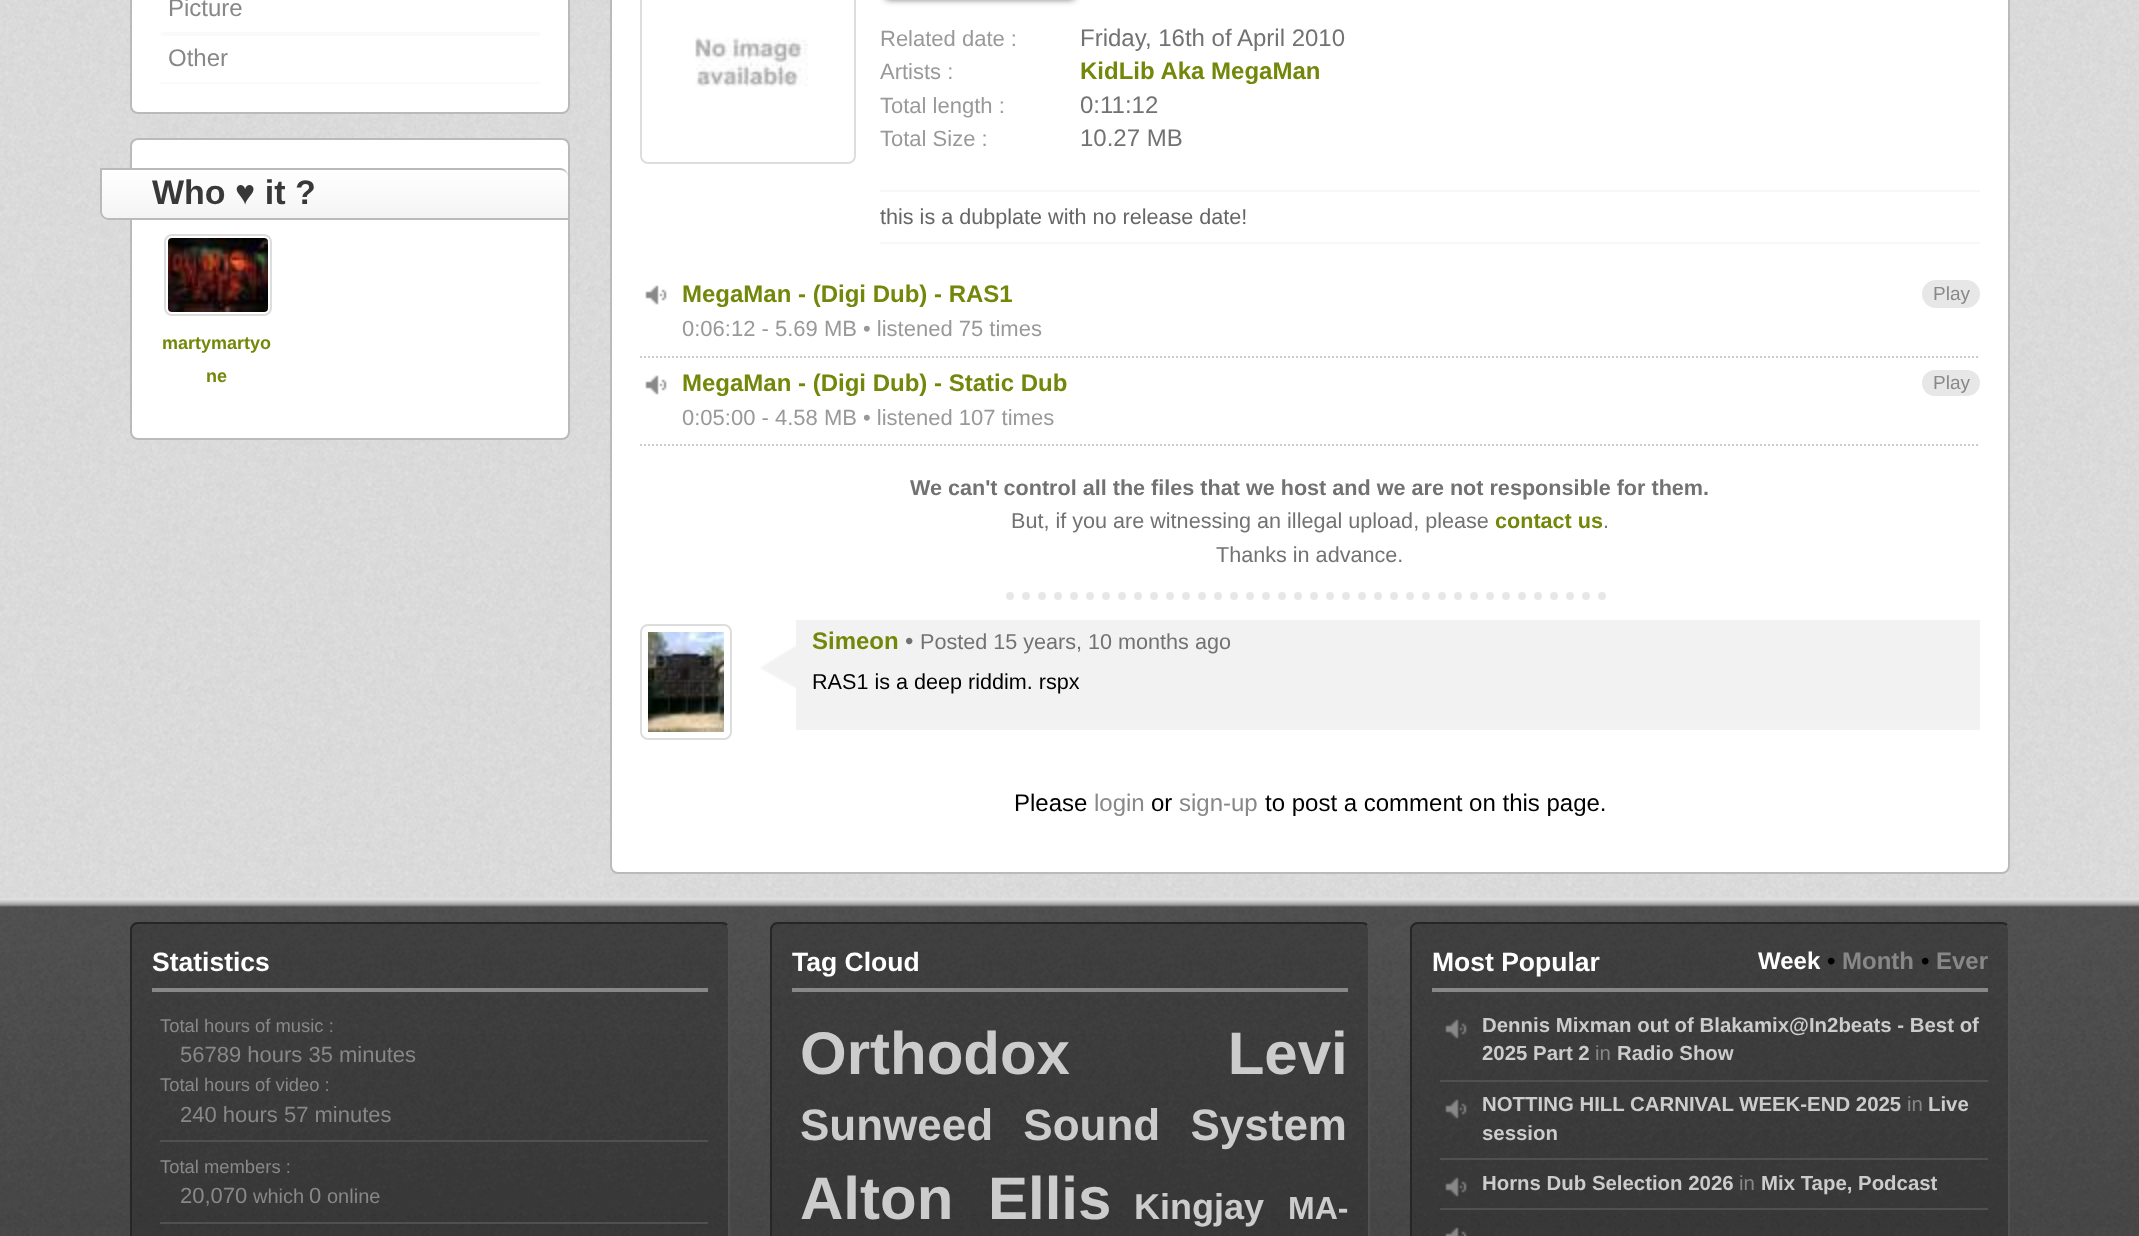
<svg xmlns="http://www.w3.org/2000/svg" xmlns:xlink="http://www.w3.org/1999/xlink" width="2139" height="1236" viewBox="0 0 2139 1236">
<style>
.cls-1{font:24px Liberation Sans;fill:#888888}
.cls-2{font:bold 34px Liberation Sans;fill:#383838}
.cls-3{font:bold 18px Liberation Sans;fill:#73880a}
.cls-4{font:22px Liberation Sans;fill:#999999}
.cls-5{font:24px Liberation Sans;fill:#727272}
.cls-6{font:bold 24px Liberation Sans;fill:#73880a}
.cls-7{font:21.6px Liberation Sans;fill:#666666}
.cls-8{font:19px Liberation Sans;fill:#888888}
.cls-9{font:bold 21.6px Liberation Sans;fill:#727272}
.cls-10{font:21.6px Liberation Sans;fill:#727272}
.cls-11{font:bold 21.6px Liberation Sans;fill:#73880a}
.cls-12{font:21.6px Liberation Sans;fill:#000000}
.cls-13{font:24px Liberation Sans;fill:#000000}
.cls-14{font:bold 26.5px Liberation Sans;fill:#ffffff}
.cls-15{font:18.4px Liberation Sans;fill:#888888}
.cls-16{font:22px Liberation Sans;fill:#888888}
.cls-17{font:20px Liberation Sans;fill:#888888}
.cls-18{font:bold 60px Liberation Sans;fill:#cccccc}
.cls-19{font:bold 44px Liberation Sans;fill:#cccccc}
.cls-20{font:bold 36px Liberation Sans;fill:#cccccc}
.cls-21{font:bold 32px Liberation Sans;fill:#cccccc}
.cls-22{font:bold 24px Liberation Sans;fill:#ffffff}
.cls-23{font:bold 24px Liberation Sans;fill:#000000}
.cls-24{font:bold 24px Liberation Sans;fill:#888888}
.cls-25{font:bold 20.4px Liberation Sans;fill:#cccccc}
.cls-26{font:20.4px Liberation Sans;fill:#888888}
</style>
<rect width="100%" height="100%" fill="#ffffff"/>
<image xlink:href="image0.png" x="0" y="0" width="2139" height="898"/>
<rect fill="#ffffff" stroke="#bababa" stroke-width="2" x="131" y="-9" width="438" height="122" rx="7"/>
<path fill="#fafafa" d="M540 34H160L162 32H540Z"/>
<path fill="#fafafa" d="M160 34H540V36H162Z"/>
<path fill="#fafafa" d="M540 84H160L162 82H540Z"/>
<rect fill="#ffffff" stroke="#bababa" stroke-width="2" x="131" y="139" width="438" height="300" rx="7"/>
<path fill="#e6e6e6" d="M100 168H560C564.5 168 568 171.5 568 176V220H108C103.5 220 100 216.5 100 212Z"/>
<image xlink:href="image1.png" x="100" y="170" width="468" height="50"/>
<path fill="#bababa" fill-rule="evenodd" d="M100 168H560C564 168 568 172 568 176V220H108C104 220 100 216 100 212ZM102 170H560C564 170 568 173 568 176V218H108C105 218 102 215 102 212Z"/>
<rect fill="none" stroke="#dddddd" stroke-width="2" x="165" y="235" width="106" height="80" rx="7"/>
<image xlink:href="image2.png" x="168" y="238" width="100" height="74"/>
<rect fill="#ffffff" stroke="#bababa" stroke-width="2" x="611" y="-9" width="1398" height="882" rx="7"/>
<rect fill="none" stroke="#dddddd" stroke-width="2" x="641" y="-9" width="214" height="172" rx="7"/>
<image xlink:href="image3.png" x="695" y="37" width="113" height="50"/>
<rect fill="#000000" fill-opacity="0.5" filter="blur(3px)" x="884" y="-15" width="192" height="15" rx="6"/>
<rect fill="#f7f7f7" x="880" y="190" width="1100" height="2"/>
<rect fill="#f7f7f7" x="880" y="242" width="1100" height="2"/>
<path fill="none" stroke="#cccccc" stroke-width="2" stroke-dasharray="2 2" d="M640 357H1980"/>
<image xlink:href="image4.png" x="645" y="285" width="22" height="20"/>
<rect fill="#e7e7e7" x="1922" y="280" width="58" height="28" rx="14"/>
<path fill="none" stroke="#cccccc" stroke-width="2" stroke-dasharray="2 2" d="M640 445H1980"/>
<image xlink:href="image4.png" x="645" y="375" width="22" height="20"/>
<rect fill="#e7e7e7" x="1922" y="370" width="58" height="26" rx="13"/>
<path fill="none" stroke="#e7e7e7" stroke-width="8" stroke-linecap="round" stroke-dasharray="0 16" d="M1010 596H1610"/>
<rect fill="none" stroke="#dddddd" stroke-width="2" x="641" y="625" width="90" height="114" rx="7"/>
<image xlink:href="image5.png" x="648" y="632" width="76" height="100"/>
<rect fill="#f2f2f2" x="760" y="620" width="1220" height="110"/>
<image xlink:href="image6.png" x="760" y="620" width="36" height="110"/>
<image xlink:href="image7.png" x="0" y="898" width="2139" height="338"/>
<rect fill="#000000" fill-opacity="0.2" x="130" y="922" width="600" height="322" rx="8"/>
<path fill="none" stroke="#505050" stroke-width="2" d="M727 925C728.5 926.5 729 928 729 930V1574C729 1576 728.5 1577.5 727 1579C725.5 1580.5 724 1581 722 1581H138C136 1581 134.5 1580.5 133 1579"/>
<path fill="none" stroke="#262626" stroke-width="2" d="M133 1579C131.5 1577.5 131 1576 131 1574V930C131 928 131.5 926.5 133 925C134.5 923.5 136 923 138 923H722C724 923 725.5 923.5 727 925"/>
<rect fill="#888888" x="152" y="988" width="556" height="4"/>
<rect fill="#505050" x="160" y="1140" width="548" height="2"/>
<rect fill="#505050" x="160" y="1222" width="548" height="2"/>
<rect fill="#000000" fill-opacity="0.2" x="770" y="922" width="600" height="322" rx="8"/>
<path fill="none" stroke="#505050" stroke-width="2" d="M1367 925C1368.5 926.5 1369 928 1369 930V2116C1369 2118 1368.5 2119.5 1367 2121C1365.5 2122.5 1364 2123 1362 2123H778C776 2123 774.5 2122.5 773 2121"/>
<path fill="none" stroke="#262626" stroke-width="2" d="M773 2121C771.5 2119.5 771 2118 771 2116V930C771 928 771.5 926.5 773 925C774.5 923.5 776 923 778 923H1362C1364 923 1365.5 923.5 1367 925"/>
<rect fill="#888888" x="792" y="988" width="556" height="4"/>
<rect fill="#000000" fill-opacity="0.2" x="1410" y="922" width="600" height="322" rx="8"/>
<path fill="none" stroke="#505050" stroke-width="2" d="M2007 925C2008.5 926.5 2009 928 2009 930V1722C2009 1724 2008.5 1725.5 2007 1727C2005.5 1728.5 2004 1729 2002 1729H1418C1416 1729 1414.5 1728.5 1413 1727"/>
<path fill="none" stroke="#262626" stroke-width="2" d="M1413 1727C1411.5 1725.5 1411 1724 1411 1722V930C1411 928 1411.5 926.5 1413 925C1414.5 923.5 1416 923 1418 923H2002C2004 923 2005.5 923.5 2007 925"/>
<rect fill="#888888" x="1432" y="988" width="556" height="4"/>
<rect fill="#505050" x="1440" y="1080" width="548" height="2"/>
<image xlink:href="image8.png" x="1445" y="1019" width="22" height="20"/>
<rect fill="#505050" x="1440" y="1158" width="548" height="2"/>
<image xlink:href="image9.png" x="1445" y="1099" width="22" height="20"/>
<rect fill="#505050" x="1440" y="1208" width="548" height="2"/>
<image xlink:href="image10.png" x="1445" y="1177" width="22" height="20"/>
<image xlink:href="image11.png" x="1445" y="1227" width="22" height="9"/>
<text class="cls-1" x="168" y="16">Picture</text>
<text class="cls-1" x="168" y="66">Other</text>
<text class="cls-2" x="152" y="204">Who ♥ it ?</text>
<text class="cls-3" x="162" y="349">martymartyo</text>
<text class="cls-3" x="206" y="382">ne</text>
<text class="cls-4" x="880" y="46">Related date :</text>
<text class="cls-5" x="1080" y="46">Friday, 16th of April 2010</text>
<text class="cls-4" x="880" y="79">Artists :</text>
<text class="cls-6" x="1080" y="79">KidLib Aka MegaMan</text>
<text class="cls-4" x="880" y="113">Total length :</text>
<text class="cls-5" x="1080" y="113">0:11:12</text>
<text class="cls-4" x="880" y="146">Total Size :</text>
<text class="cls-5" x="1080" y="146">10.27 MB</text>
<text class="cls-7" x="880" y="224">this is a dubplate with no release date!</text>
<text class="cls-6" x="682" y="302">MegaMan - (Digi Dub) - RAS1</text>
<text class="cls-4" x="682" y="336">0:06:12 - 5.69 MB • listened 75 times</text>
<text class="cls-8" x="1933" y="300">Play</text>
<text class="cls-6" x="682" y="391">MegaMan - (Digi Dub) - Static Dub</text>
<text class="cls-4" x="682" y="425">0:05:00 - 4.58 MB • listened 107 times</text>
<text class="cls-8" x="1933" y="389">Play</text>
<text class="cls-9" x="910" y="495">We can't control all the files that we host and we are not responsible for them.</text>
<text class="cls-10" x="1011" y="528">But, if you are witnessing an illegal upload, please</text>
<text class="cls-11" x="1495" y="528">contact us</text>
<text class="cls-10" x="1603" y="528">.</text>
<text class="cls-10" x="1216" y="562">Thanks in advance.</text>
<text class="cls-6" x="812" y="649">Simeon</text>
<text class="cls-5" x="905" y="649">•</text>
<text class="cls-10" x="920" y="649">Posted 15 years, 10 months ago</text>
<text class="cls-12" x="812" y="689">RAS1 is a deep riddim. rspx</text>
<text class="cls-13" x="1014" y="811">Please</text>
<text class="cls-1" x="1094" y="811">login</text>
<text class="cls-13" x="1151" y="811">or</text>
<text class="cls-1" x="1179" y="811">sign-up</text>
<text class="cls-13" x="1265" y="811">to post a comment on this page.</text>
<text class="cls-14" x="152" y="971">Statistics</text>
<text class="cls-15" x="160" y="1032">Total hours of music :</text>
<text class="cls-16" x="180" y="1062">56789 hours 35 minutes</text>
<text class="cls-15" x="160" y="1091">Total hours of video :</text>
<text class="cls-16" x="180" y="1122">240 hours 57 minutes</text>
<text class="cls-15" x="160" y="1173">Total members :</text>
<text class="cls-16" x="180" y="1203">20,070</text>
<text class="cls-17" x="253" y="1203">which</text>
<text class="cls-16" x="309" y="1203">0</text>
<text class="cls-17" x="327" y="1203">online</text>
<text class="cls-14" x="792" y="971">Tag Cloud</text>
<text class="cls-18" x="800" y="1074" word-spacing="141">Orthodox Levi</text>
<text class="cls-19" x="800" y="1140" word-spacing="18">Sunweed Sound System</text>
<text class="cls-18" x="800" y="1219" word-spacing="18">Alton Ellis</text>
<text class="cls-20" x="1134" y="1219">Kingjay</text>
<text class="cls-21" x="1288" y="1219">MA-</text>
<text class="cls-14" x="1432" y="971">Most Popular</text>
<text class="cls-22" x="1758" y="969">Week</text>
<text class="cls-23" x="1827" y="969">•</text>
<text class="cls-24" x="1842" y="969">Month</text>
<text class="cls-23" x="1921" y="969">•</text>
<text class="cls-24" x="1936" y="969">Ever</text>
<text class="cls-25"><tspan x="1482" y="1032">Dennis Mixman out of Blakamix@In2beats - Best of</tspan><tspan x="1482" y="1060">2025 Part 2</tspan></text>
<text class="cls-26" x="1595" y="1060">in</text>
<text class="cls-25" x="1617" y="1060">Radio Show</text>
<text class="cls-25" x="1482" y="1111">NOTTING HILL CARNIVAL WEEK-END 2025</text>
<text class="cls-26" x="1907" y="1111">in</text>
<text class="cls-25" x="1928" y="1111">Live</text>
<text class="cls-25" x="1482" y="1140">session</text>
<text class="cls-25" x="1482" y="1190">Horns Dub Selection 2026</text>
<text class="cls-26" x="1739" y="1190">in</text>
<text class="cls-25" x="1761" y="1190">Mix Tape, Podcast</text>
</svg>
